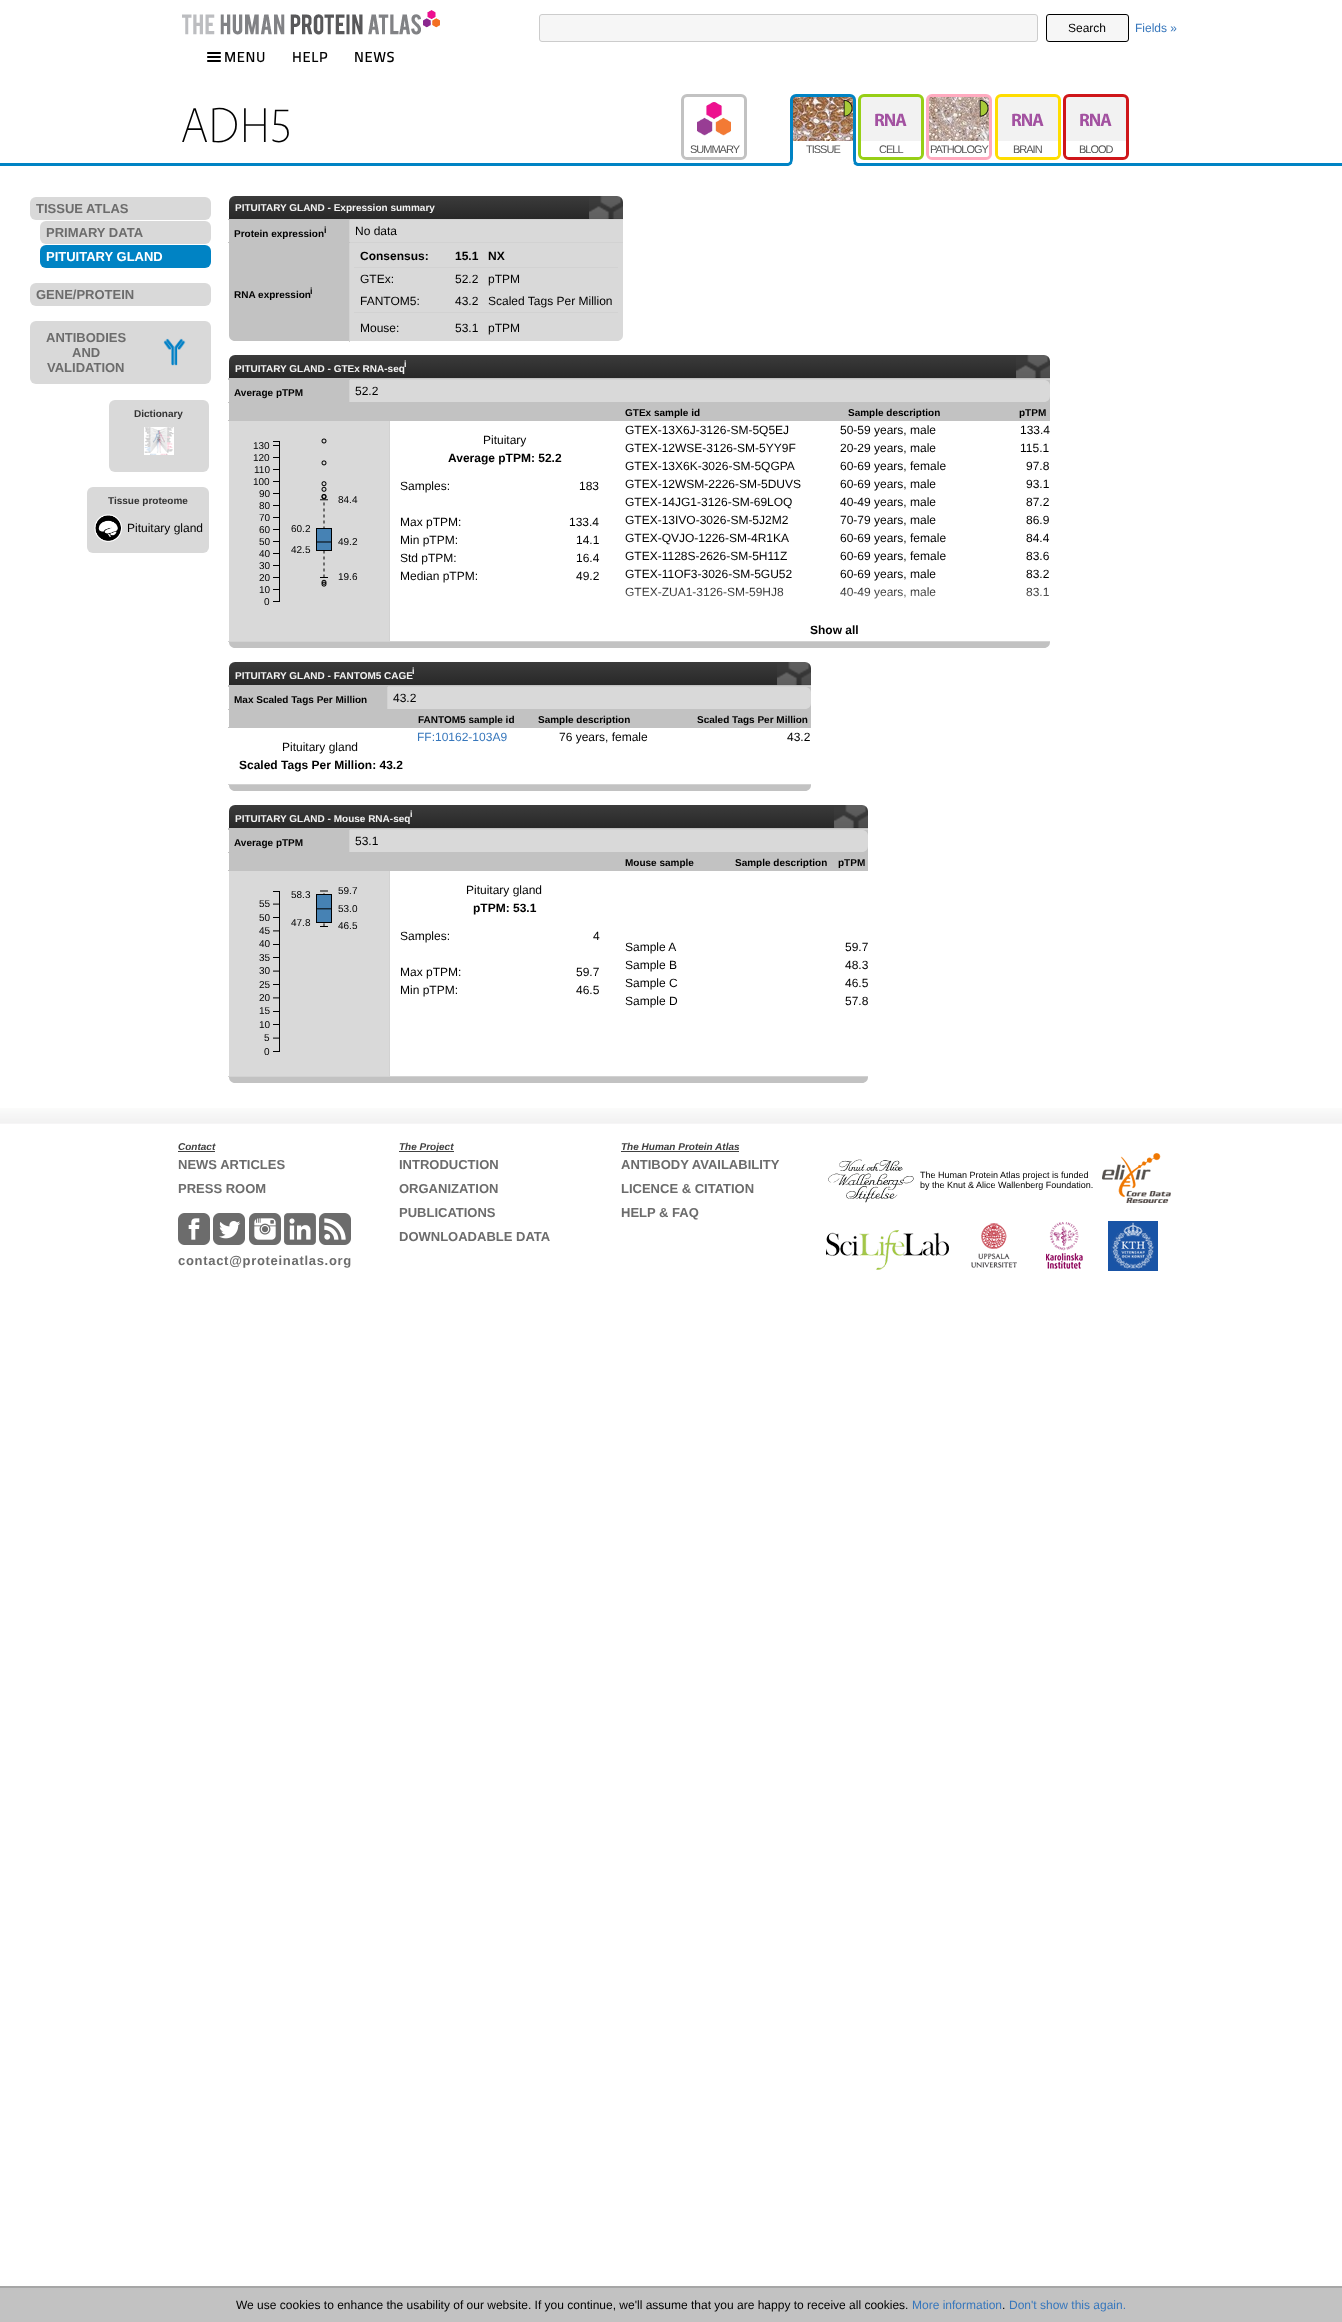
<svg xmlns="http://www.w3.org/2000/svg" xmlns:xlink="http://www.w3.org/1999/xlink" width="1342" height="2322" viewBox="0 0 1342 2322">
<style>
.cls-1{font:12px Liberation Sans;fill:#000000}
.cls-2{font:12px Liberation Sans;fill:#3777bc}
.cls-3{font:bold 14px Titillium Web;letter-spacing:1px;fill:#000000}
.cls-4{font:300 49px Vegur;fill:#000000}
.cls-5{font:11px Liberation Sans;letter-spacing:-1px;fill:#555555}
.cls-6{font:bold 13px Liberation Sans;fill:#6c6c6c}
.cls-7{font:bold 13px Liberation Sans;fill:#ffffff}
.cls-8{font:bold 10px Liberation Sans;fill:#333333}
.cls-9{font:bold 10px Liberation Sans;fill:#f2f2f2}
.cls-10{font:bold 10px Liberation Sans;fill:#000000}
.cls-11{font:bold 9px Liberation Sans;fill:#000000}
.cls-12{font:bold 12px Liberation Sans;fill:#000000}
.cls-13{font:bold 9px Liberation Sans;fill:#f2f2f2}
.cls-14{font:10px Liberation Sans;fill:#000000}
.cls-15{font:italic bold 10px Liberation Sans;fill:#404040}
.cls-16{font:bold 13px Liberation Sans;letter-spacing:0.7px;fill:#6c6c6c}
.cls-17{font:9px Liberation Sans;fill:#000000}
</style>
<defs>
<linearGradient id="g1" gradientUnits="userSpaceOnUse" x1="835" y1="619" x2="835" y2="584"><stop offset="0" stop-color="#ffffff"/><stop offset="1" stop-color="#ffffff" stop-opacity="0"/></linearGradient>
</defs>
<rect width="100%" height="100%" fill="#ffffff"/>
<image xlink:href="image0.png" x="182" y="14" width="239" height="21"/>
<image xlink:href="image1.png" x="423" y="10" width="17" height="18"/>
<rect fill="#f6f6f6" stroke="#cccccc" x="539.5" y="14.5" width="498" height="27" rx="2.5"/>
<rect fill="#f6f6f6" stroke="#000000" x="1046.5" y="14.5" width="82" height="27" rx="2.5"/>
<image xlink:href="image2.png" x="207" y="52" width="14" height="10"/>
<image xlink:href="image3.png" x="697" y="102" width="34" height="34"/>
<rect fill="none" stroke="#c2c2c2" stroke-width="3" x="682.5" y="95.5" width="63" height="63" rx="4.5"/>
<path fill="#ffffff" d="M684 141H744V154C744 155.5 742.5 157 741 157H687C685.5 157 684 155.5 684 154Z"/>
<image xlink:href="image4.png" x="793" y="97" width="60" height="44"/>
<rect fill="none" stroke="#0083c4" stroke-width="3" x="791.5" y="95.5" width="63" height="63" rx="4.5"/>
<image xlink:href="image5.png" x="843" y="100" width="10" height="17"/>
<rect fill="#0083c4" x="0" y="163" width="1342" height="3"/>
<rect fill="#ffffff" x="793" y="154" width="60" height="12"/>
<path fill="#0083c4" d="M787 163.5V166C793 166 793 160.5 793 156H791C791 159 790.5 162.5 787 163.5Z"/>
<rect fill="#0083c4" x="790" y="154" width="1" height="7"/>
<path fill="#ffffff" fill-rule="evenodd" d="M787 160H796C796 165.5 792.5 170 787 170ZM787 160H793C793 163.5 790.5 166 787 166Z"/>
<image xlink:href="image6.png" x="861" y="97" width="60" height="44"/>
<rect fill="none" stroke="#97cf16" stroke-width="3" x="859.5" y="95.5" width="63" height="63" rx="4.5"/>
<path fill="#0083c4" d="M853 156C853 160.5 853 166 859 166V163.5C855.5 162.5 855 159 855 156Z"/>
<rect fill="#0083c4" x="855" y="154" width="1" height="7"/>
<path fill="#ffffff" fill-rule="evenodd" d="M850 160H859V170C854 170 850 166 850 161ZM853 160H859V166C855.5 166 853 164 853 161Z"/>
<path fill="#ffffff" d="M861 141H921V154C921 155.5 919.5 157 918 157H864C862.5 157 861 155.5 861 154Z"/>
<image xlink:href="image7.png" x="929" y="97" width="60" height="44"/>
<rect fill="none" stroke="#ffaabf" stroke-width="3" x="927.5" y="95.5" width="63" height="63" rx="4.5"/>
<image xlink:href="image8.png" x="979" y="100" width="10" height="17"/>
<path fill="#ffffff" d="M929 141H989V154C989 155.5 987.5 157 986 157H932C930.5 157 929 155.5 929 154Z"/>
<image xlink:href="image6.png" x="998" y="97" width="60" height="44"/>
<rect fill="none" stroke="#ffdd00" stroke-width="3" x="996.5" y="95.5" width="63" height="63" rx="4.5"/>
<path fill="#ffffff" d="M998 141H1058V154C1058 155.5 1056.5 157 1055 157H1001C999.5 157 998 155.5 998 154Z"/>
<image xlink:href="image6.png" x="1066" y="97" width="60" height="44"/>
<rect fill="none" stroke="#cf161a" stroke-width="3" x="1064.5" y="95.5" width="63" height="63" rx="4.5"/>
<path fill="#ffffff" d="M1066 141H1126V154C1126 155.5 1124.5 157 1123 157H1069C1067.5 157 1066 155.5 1066 154Z"/>
<rect fill="#d9d9d9" x="30" y="197" width="181" height="23" rx="6"/>
<rect fill="#d9d9d9" x="40" y="221" width="171" height="23" rx="6"/>
<rect fill="#0083c4" x="40" y="245" width="171" height="23" rx="6"/>
<rect fill="#d9d9d9" x="30" y="283" width="181" height="23" rx="6"/>
<rect fill="#d9d9d9" x="30" y="321" width="181" height="63" rx="6"/>
<image xlink:href="image9.png" x="163" y="338" width="23" height="28"/>
<rect fill="#d9d9d9" x="109" y="400" width="100" height="72" rx="6"/>
<image xlink:href="image10.png" x="144" y="427" width="30" height="28"/>
<rect fill="#d9d9d9" x="87" y="487" width="122" height="66" rx="6"/>
<image xlink:href="image11.png" x="94" y="514" width="28" height="28"/>
<image xlink:href="image12.png" x="229" y="196" width="394" height="23"/>
<rect fill="#c2c2c2" x="229" y="220" width="120" height="22"/>
<rect fill="#d2d2d2" x="349" y="219" width="274" height="1"/>
<path fill="#d9d9d9" d="M349 243H623V335C623 338.5 620.5 341 617 341H349Z"/>
<rect fill="#d2d2d2" x="349" y="242" width="1" height="100"/>
<rect fill="#d2d2d2" x="349" y="242" width="274" height="1"/>
<rect fill="#d2d2d2" x="349" y="219" width="1" height="24"/>
<rect fill="#c2c2c2" x="228" y="219" width="122" height="1"/>
<rect fill="#c2c2c2" x="228" y="242" width="122" height="1"/>
<rect fill="#d9d9d9" x="350" y="220" width="273" height="22"/>
<path fill="#c2c2c2" d="M229 243H349V341H235C231.5 341 229 338.5 229 335Z"/>
<rect fill="#d2d2d2" x="354" y="267" width="264" height="1"/>
<rect fill="#d2d2d2" x="354" y="312" width="264" height="1"/>
<image xlink:href="image13.png" x="229" y="355" width="821" height="23"/>
<rect fill="#c2c2c2" x="229" y="380" width="821" height="23"/>
<rect fill="#c2c2c2" x="228" y="378" width="822" height="1"/>
<rect fill="#d2d2d2" x="349" y="379" width="701" height="1"/>
<path fill="#d9d9d9" d="M349 380H1044C1047.5 380 1050 382.5 1050 386V396C1050 399.5 1047.5 402 1044 402H349Z"/>
<rect fill="#d2d2d2" x="349" y="379" width="1" height="24"/>
<rect fill="#c2c2c2" x="228" y="379" width="122" height="1"/>
<rect fill="#c2c2c2" x="229" y="403" width="821" height="17"/>
<rect fill="#c2c2c2" x="228" y="402" width="122" height="1"/>
<rect fill="#d2d2d2" x="389" y="641" width="661" height="1"/>
<rect fill="#d2d2d2" x="389" y="420" width="1" height="222"/>
<rect fill="#c2c2c2" x="228" y="420" width="822" height="1"/>
<rect fill="#d9d9d9" x="229" y="421" width="160" height="220"/>
<rect fill="#d2d2d2" x="228" y="641" width="162" height="1"/>
<image xlink:href="image14.png" x="273" y="438" width="59" height="164"/>
<path fill="#c2c2c2" d="M229 642H1050C1050 645.5 1047.5 648 1044 648H235C231.5 648 229 645.5 229 642Z"/>
<image xlink:href="image15.png" x="229" y="662" width="582" height="23"/>
<rect fill="#c2c2c2" x="229" y="687" width="582" height="23"/>
<rect fill="#c2c2c2" x="228" y="685" width="583" height="1"/>
<rect fill="#d2d2d2" x="387" y="686" width="424" height="1"/>
<path fill="#d9d9d9" d="M387 687H805C808.5 687 811 689.5 811 693V703C811 706.5 808.5 709 805 709H387Z"/>
<rect fill="#d2d2d2" x="387" y="686" width="1" height="24"/>
<rect fill="#c2c2c2" x="228" y="686" width="160" height="1"/>
<rect fill="#c2c2c2" x="229" y="710" width="582" height="17"/>
<rect fill="#c2c2c2" x="228" y="709" width="160" height="1"/>
<rect fill="#c2c2c2" x="228" y="727" width="583" height="1"/>
<rect fill="#d2d2d2" x="228" y="784" width="583" height="1"/>
<path fill="#c2c2c2" d="M229 785H811C811 788.5 808.5 791 805 791H235C231.5 791 229 788.5 229 785Z"/>
<image xlink:href="image16.png" x="229" y="805" width="639" height="23"/>
<rect fill="#c2c2c2" x="229" y="830" width="639" height="23"/>
<rect fill="#c2c2c2" x="228" y="828" width="640" height="1"/>
<rect fill="#d2d2d2" x="349" y="829" width="519" height="1"/>
<path fill="#d9d9d9" d="M349 830H862C865.5 830 868 832.5 868 836V846C868 849.5 865.5 852 862 852H349Z"/>
<rect fill="#d2d2d2" x="349" y="829" width="1" height="24"/>
<rect fill="#c2c2c2" x="228" y="829" width="122" height="1"/>
<rect fill="#c2c2c2" x="229" y="853" width="639" height="17"/>
<rect fill="#c2c2c2" x="228" y="852" width="122" height="1"/>
<rect fill="#d2d2d2" x="389" y="1076" width="479" height="1"/>
<rect fill="#d2d2d2" x="389" y="870" width="1" height="207"/>
<rect fill="#c2c2c2" x="228" y="870" width="640" height="1"/>
<rect fill="#d9d9d9" x="229" y="871" width="160" height="205"/>
<rect fill="#d2d2d2" x="228" y="1076" width="162" height="1"/>
<image xlink:href="image17.png" x="273" y="890" width="59" height="162"/>
<path fill="#c2c2c2" d="M229 1077H868C868 1080.5 865.5 1083 862 1083H235C231.5 1083 229 1080.5 229 1077Z"/>
<image xlink:href="image18.png" x="0" y="1108" width="1342" height="16"/>
<rect fill="#404040" x="178" y="1151" width="37" height="1"/>
<image xlink:href="image19.png" x="178" y="1213" width="32" height="32"/>
<image xlink:href="image20.png" x="213" y="1213" width="32" height="32"/>
<image xlink:href="image21.png" x="249" y="1213" width="32" height="32"/>
<image xlink:href="image22.png" x="284" y="1213" width="32" height="32"/>
<image xlink:href="image23.png" x="319" y="1213" width="32" height="32"/>
<rect fill="#404040" x="399" y="1151" width="55" height="1"/>
<rect fill="#404040" x="621" y="1151" width="118" height="1"/>
<image xlink:href="image24.png" x="828" y="1159" width="86" height="44"/>
<image xlink:href="image25.png" x="1102" y="1153" width="69" height="50"/>
<image xlink:href="image26.png" x="826" y="1230" width="123" height="40"/>
<image xlink:href="image27.png" x="971" y="1223" width="46" height="45"/>
<image xlink:href="image28.png" x="1046" y="1222" width="37" height="47"/>
<image xlink:href="image29.png" x="1108" y="1221" width="50" height="50"/>
<rect fill="#c2c2c2" x="0" y="2288" width="1342" height="34"/>
<rect fill="#a6a6a6" x="0" y="2286" width="1342" height="2"/>
<text class="cls-1" x="1068" y="32">Search</text>
<text class="cls-2" x="1135" y="32">Fields »</text>
<text class="cls-3" x="224" y="62">MENU</text>
<text class="cls-3" x="292" y="62">HELP</text>
<text class="cls-3" x="354" y="62">NEWS</text>
<text class="cls-4" x="181" y="142">ADH5</text>
<text class="cls-5" x="690" y="153">SUMMARY</text>
<text class="cls-5" x="806" y="153">TISSUE</text>
<text class="cls-5" x="879" y="153">CELL</text>
<text class="cls-5" x="930" y="153">PATHOLOGY</text>
<text class="cls-5" x="1013" y="153">BRAIN</text>
<text class="cls-5" x="1079" y="153">BLOOD</text>
<text class="cls-6" x="36" y="213">TISSUE ATLAS</text>
<text class="cls-6" x="46" y="237">PRIMARY DATA</text>
<text class="cls-7" x="46" y="261">PITUITARY GLAND</text>
<text class="cls-6" x="36" y="299">GENE/PROTEIN</text>
<text class="cls-6" x="46" y="342">ANTIBODIES</text>
<text class="cls-6" x="72" y="357">AND</text>
<text class="cls-6" x="47" y="372">VALIDATION</text>
<text class="cls-8" x="134" y="417">Dictionary</text>
<text class="cls-8" x="108" y="504">Tissue proteome</text>
<text class="cls-1" x="127" y="532">Pituitary gland</text>
<text class="cls-9" x="235" y="211">PITUITARY GLAND - Expression summary</text>
<text class="cls-10" x="234" y="237">Protein expression</text>
<text class="cls-11" x="324" y="233">i</text>
<text class="cls-1" x="355" y="235">No data</text>
<text class="cls-10" x="234" y="298">RNA expression</text>
<text class="cls-11" x="310" y="294">i</text>
<text class="cls-12" x="360" y="260">Consensus:</text>
<text class="cls-12" x="455" y="260">15.1</text>
<text class="cls-12" x="488" y="260">NX</text>
<text class="cls-1" x="360" y="283">GTEx:</text>
<text class="cls-1" x="455" y="283">52.2</text>
<text class="cls-1" x="488" y="283">pTPM</text>
<text class="cls-1" x="360" y="305">FANTOM5:</text>
<text class="cls-1" x="455" y="305">43.2</text>
<text class="cls-1" x="488" y="305">Scaled Tags Per Million</text>
<text class="cls-1" x="360" y="332">Mouse:</text>
<text class="cls-1" x="455" y="332">53.1</text>
<text class="cls-1" x="488" y="332">pTPM</text>
<text class="cls-13" x="404" y="367">i</text>
<text class="cls-9" x="235" y="372">PITUITARY GLAND - GTEx RNA-seq</text>
<text class="cls-10" x="234" y="396">Average pTPM</text>
<text class="cls-1" x="355" y="395">52.2</text>
<text class="cls-10" x="625" y="416">GTEx sample id</text>
<text class="cls-10" x="848" y="416">Sample description</text>
<text class="cls-10" x="1019" y="416">pTPM</text>
<text class="cls-14"><tspan x="253" y="449">130</tspan><tspan x="253" y="461">120</tspan></text>
<text class="cls-14" x="254" y="473">110</text>
<text class="cls-14" x="253" y="485">100</text>
<text class="cls-14" x="259" y="497">90</text>
<text class="cls-14" x="338" y="503">84.4</text>
<text class="cls-14"><tspan x="259" y="509">80</tspan><tspan x="259" y="521">70</tspan><tspan x="259" y="533">60</tspan></text>
<text class="cls-14" x="291" y="532">60.2</text>
<text class="cls-14" x="259" y="545">50</text>
<text class="cls-14" x="338" y="545">49.2</text>
<text class="cls-14" x="259" y="557">40</text>
<text class="cls-14" x="291" y="553">42.5</text>
<text class="cls-14"><tspan x="259" y="569">30</tspan><tspan x="259" y="581">20</tspan></text>
<text class="cls-14" x="338" y="580">19.6</text>
<text class="cls-14" x="259" y="593">10</text>
<text class="cls-14" x="264" y="605">0</text>
<text class="cls-1" x="483" y="444">Pituitary</text>
<text class="cls-12" x="448" y="462">Average pTPM: 52.2</text>
<text class="cls-1" x="400" y="490">Samples:</text>
<text class="cls-1" x="579" y="490">183</text>
<text class="cls-1" x="400" y="526">Max pTPM:</text>
<text class="cls-1" x="569" y="526">133.4</text>
<text class="cls-1" x="400" y="544">Min pTPM:</text>
<text class="cls-1" x="576" y="544">14.1</text>
<text class="cls-1" x="400" y="562">Std pTPM:</text>
<text class="cls-1" x="576" y="562">16.4</text>
<text class="cls-1" x="400" y="580">Median pTPM:</text>
<text class="cls-1" x="576" y="580">49.2</text>
<text class="cls-1" x="625" y="434">GTEX-13X6J-3126-SM-5Q5EJ</text>
<text class="cls-1" x="840" y="434">50-59 years, male</text>
<text class="cls-1" x="1020" y="434">133.4</text>
<text class="cls-1" x="625" y="452">GTEX-12WSE-3126-SM-5YY9F</text>
<text class="cls-1" x="840" y="452">20-29 years, male</text>
<text class="cls-1" x="1020" y="452">115.1</text>
<text class="cls-1" x="625" y="470">GTEX-13X6K-3026-SM-5QGPA</text>
<text class="cls-1" x="840" y="470">60-69 years, female</text>
<text class="cls-1" x="1026" y="470">97.8</text>
<text class="cls-1" x="625" y="488">GTEX-12WSM-2226-SM-5DUVS</text>
<text class="cls-1" x="840" y="488">60-69 years, male</text>
<text class="cls-1" x="1026" y="488">93.1</text>
<text class="cls-1" x="625" y="506">GTEX-14JG1-3126-SM-69LOQ</text>
<text class="cls-1" x="840" y="506">40-49 years, male</text>
<text class="cls-1" x="1026" y="506">87.2</text>
<text class="cls-1" x="625" y="524">GTEX-13IVO-3026-SM-5J2M2</text>
<text class="cls-1" x="840" y="524">70-79 years, male</text>
<text class="cls-1" x="1026" y="524">86.9</text>
<text class="cls-1" x="625" y="542">GTEX-QVJO-1226-SM-4R1KA</text>
<text class="cls-1" x="840" y="542">60-69 years, female</text>
<text class="cls-1" x="1026" y="542">84.4</text>
<text class="cls-1" x="625" y="560">GTEX-1128S-2626-SM-5H11Z</text>
<text class="cls-1" x="840" y="560">60-69 years, female</text>
<text class="cls-1" x="1026" y="560">83.6</text>
<text class="cls-1" x="625" y="578">GTEX-11OF3-3026-SM-5GU52</text>
<text class="cls-1" x="840" y="578">60-69 years, male</text>
<text class="cls-1" x="1026" y="578">83.2</text>
<text class="cls-1" x="625" y="596">GTEX-ZUA1-3126-SM-59HJ8</text>
<text class="cls-1" x="840" y="596">40-49 years, male</text>
<text class="cls-1" x="1026" y="596">83.1</text>
<rect fill="url(#g1)" x="625" y="587" width="424" height="12"/>
<text class="cls-12" x="810" y="634">Show all</text>
<text class="cls-13" x="412" y="674">i</text>
<text class="cls-9" x="235" y="679">PITUITARY GLAND - FANTOM5 CAGE</text>
<text class="cls-10" x="234" y="703">Max Scaled Tags Per Million</text>
<text class="cls-1" x="393" y="702">43.2</text>
<text class="cls-10" x="418" y="723">FANTOM5 sample id</text>
<text class="cls-10" x="538" y="723">Sample description</text>
<text class="cls-10" x="697" y="723">Scaled Tags Per Million</text>
<text class="cls-2" x="417" y="741">FF:10162-103A9</text>
<text class="cls-1" x="559" y="741">76 years, female</text>
<text class="cls-1" x="787" y="741">43.2</text>
<text class="cls-1" x="282" y="751">Pituitary gland</text>
<text class="cls-12" x="239" y="769">Scaled Tags Per Million: 43.2</text>
<text class="cls-13" x="410" y="817">i</text>
<text class="cls-9" x="235" y="822">PITUITARY GLAND - Mouse RNA-seq</text>
<text class="cls-10" x="234" y="846">Average pTPM</text>
<text class="cls-1" x="355" y="845">53.1</text>
<text class="cls-10" x="625" y="866">Mouse sample</text>
<text class="cls-10" x="735" y="866">Sample description</text>
<text class="cls-10" x="838" y="866">pTPM</text>
<text class="cls-14" x="338" y="894">59.7</text>
<text class="cls-14" x="291" y="898">58.3</text>
<text class="cls-14" x="259" y="907">55</text>
<text class="cls-14" x="338" y="912">53.0</text>
<text class="cls-14" x="259" y="921">50</text>
<text class="cls-14" x="291" y="926">47.8</text>
<text class="cls-14" x="338" y="929">46.5</text>
<text class="cls-14"><tspan x="259" y="934">45</tspan><tspan x="259" y="947">40</tspan><tspan x="259" y="961">35</tspan><tspan x="259" y="974">30</tspan><tspan x="259" y="988">25</tspan><tspan x="259" y="1001">20</tspan><tspan x="259" y="1014">15</tspan><tspan x="259" y="1028">10</tspan></text>
<text class="cls-14"><tspan x="264" y="1041">5</tspan><tspan x="264" y="1055">0</tspan></text>
<text class="cls-1" x="466" y="894">Pituitary gland</text>
<text class="cls-12" x="473" y="912">pTPM: 53.1</text>
<text class="cls-1" x="400" y="940">Samples:</text>
<text class="cls-1" x="593" y="940">4</text>
<text class="cls-1" x="400" y="976">Max pTPM:</text>
<text class="cls-1" x="576" y="976">59.7</text>
<text class="cls-1" x="400" y="994">Min pTPM:</text>
<text class="cls-1" x="576" y="994">46.5</text>
<text class="cls-1" x="625" y="951">Sample A</text>
<text class="cls-1" x="845" y="951">59.7</text>
<text class="cls-1" x="625" y="969">Sample B</text>
<text class="cls-1" x="845" y="969">48.3</text>
<text class="cls-1" x="625" y="987">Sample C</text>
<text class="cls-1" x="845" y="987">46.5</text>
<text class="cls-1" x="625" y="1005">Sample D</text>
<text class="cls-1" x="845" y="1005">57.8</text>
<text class="cls-15" x="178" y="1150">Contact</text>
<text class="cls-6"><tspan x="178" y="1169">NEWS ARTICLES</tspan><tspan x="178" y="1193">PRESS ROOM</tspan></text>
<text class="cls-16" x="178" y="1265">contact@proteinatlas.org</text>
<text class="cls-15" x="399" y="1150">The Project</text>
<text class="cls-6"><tspan x="399" y="1169">INTRODUCTION</tspan><tspan x="399" y="1193">ORGANIZATION</tspan><tspan x="399" y="1217">PUBLICATIONS</tspan><tspan x="399" y="1241">DOWNLOADABLE DATA</tspan></text>
<text class="cls-15" x="621" y="1150">The Human Protein Atlas</text>
<text class="cls-6"><tspan x="621" y="1169">ANTIBODY AVAILABILITY</tspan><tspan x="621" y="1193">LICENCE &amp; CITATION</tspan><tspan x="621" y="1217">HELP &amp; FAQ</tspan></text>
<text class="cls-17"><tspan x="920" y="1178">The Human Protein Atlas project is funded</tspan><tspan x="920" y="1188">by the Knut &amp; Alice Wallenberg Foundation.</tspan></text>
<text class="cls-1" x="236" y="2309">We use cookies to enhance the usability of our website. If you continue, we'll assume that you are happy to receive all cookies.</text>
<text class="cls-2" x="912" y="2309">More information</text>
<text class="cls-1" x="1002" y="2309">.</text>
<text class="cls-2" x="1009" y="2309">Don't show this again.</text>
</svg>
